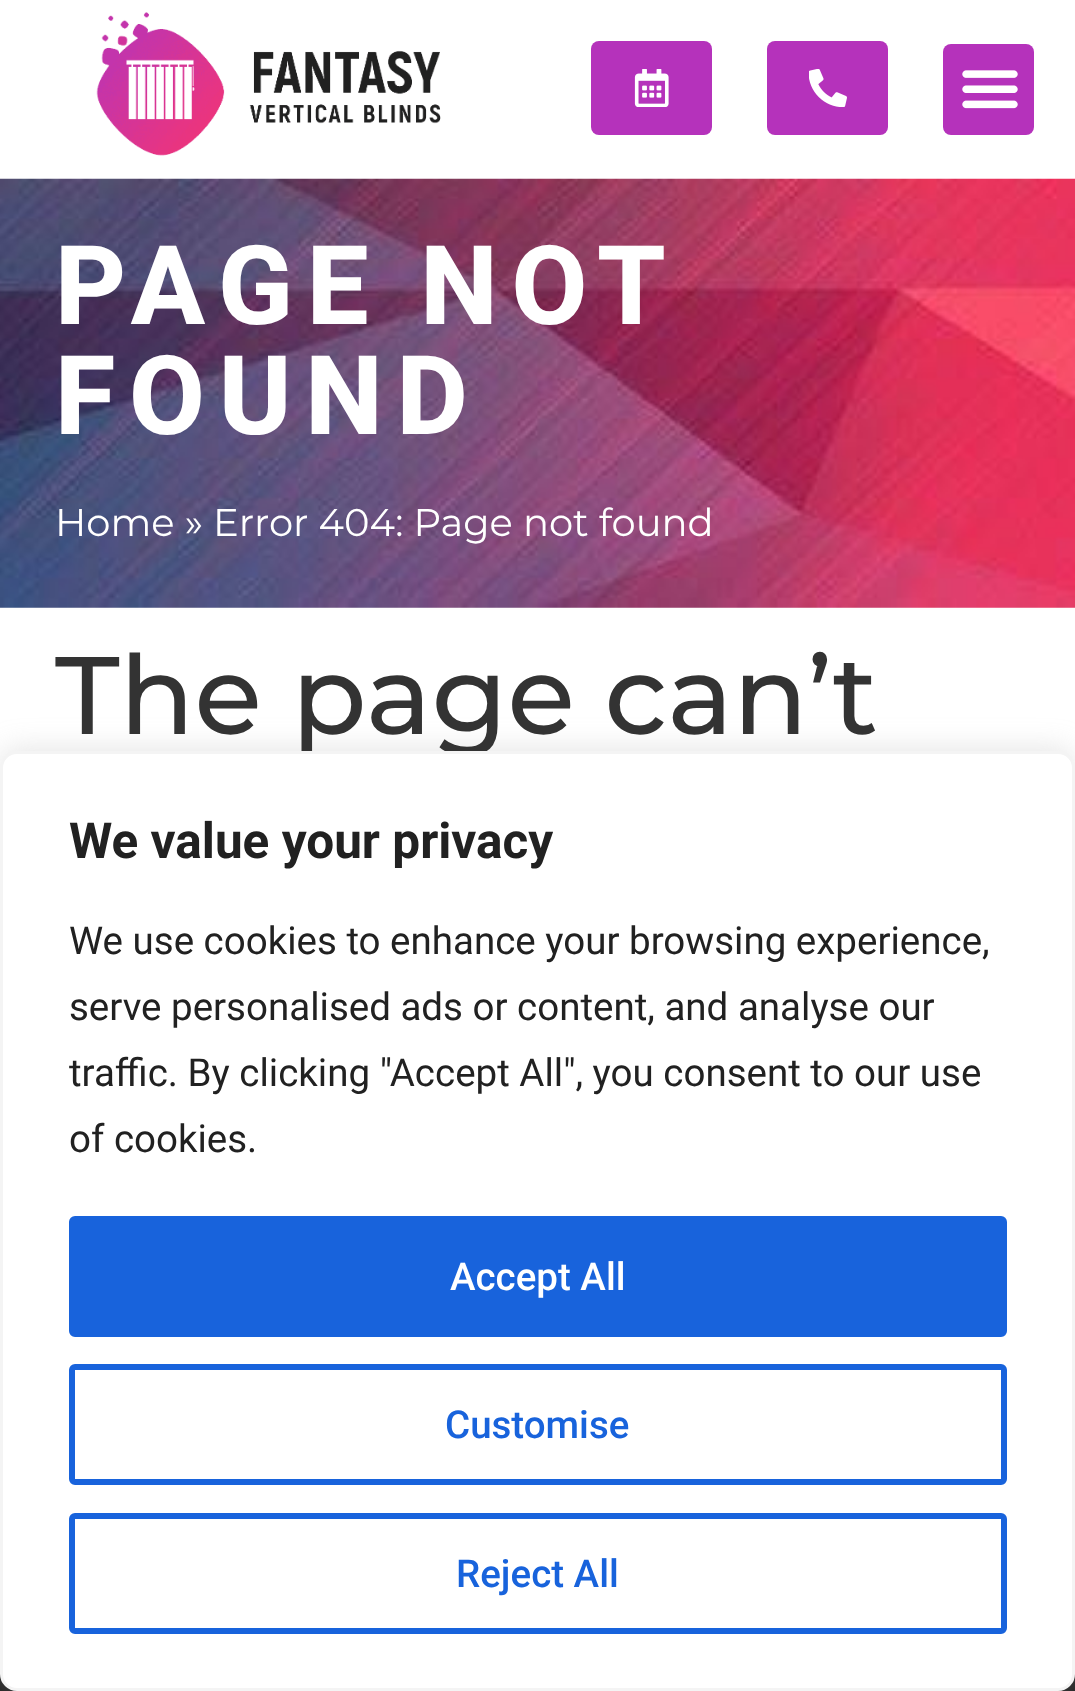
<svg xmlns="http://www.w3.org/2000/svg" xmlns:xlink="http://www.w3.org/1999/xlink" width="1075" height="1691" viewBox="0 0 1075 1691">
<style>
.cls-1{font:800 110px Roboto;letter-spacing:13.75px;fill:#ffffff}
.cls-2{font:38.5px Montserrat;fill:#ffffff}
.cls-3{font:500 110px Montserrat;fill:#333333}
.cls-4{font:bold 49.5px Roboto;fill:#212121}
.cls-5{font:38.5px Roboto;fill:#212121}
.cls-6{font:500 38.5px Roboto;fill:#ffffff}
.cls-7{font:500 38.5px Roboto;fill:#1863dc}
</style>
<rect width="100%" height="100%" fill="#ffffff"/>
<image xlink:href="image0.png" x="96" y="12" width="345" height="144"/>
<rect fill="#b532bb" x="591" y="41" width="121" height="94" rx="8"/>
<image xlink:href="image1.png" x="634" y="69" width="35" height="38"/>
<rect fill="#b532bb" x="767" y="41" width="121" height="94" rx="8"/>
<image xlink:href="image2.png" x="809" y="69" width="38" height="38"/>
<rect fill="#b532bb" x="943" y="44" width="91" height="91" rx="8"/>
<image xlink:href="image3.png" x="962" y="70" width="56" height="39"/>
<image xlink:href="image4.png" x="0" y="178" width="1075" height="430"/>
<rect fill="#242424" x="0" y="1674" width="1075" height="17"/>
<rect fill="#acabab" fill-opacity="0.3" filter="blur(14px)" x="0" y="748" width="1075" height="941" rx="17"/>
<text class="cls-1"><tspan x="55" y="324" word-spacing="-3">PAGE NOT</tspan><tspan x="55" y="434">FOUND</tspan></text>
<text class="cls-2" x="55" y="536">Home » Error 404: Page not found</text>
<text class="cls-3" x="55" y="734">The page can’t</text>
<rect fill="#ffffff" stroke="#f4f4f4" stroke-width="3" x="1.5" y="752.5" width="1072" height="937" rx="15.5"/>
<text class="cls-4" x="69" y="858">We value your privacy</text>
<text class="cls-5"><tspan x="69" y="954">We use cookies to enhance your browsing experience,</tspan><tspan x="69" y="1020">serve personalised ads or content, and analyse our</tspan><tspan x="69" y="1086">traffic. By clicking "Accept All", you consent to our use</tspan><tspan x="69" y="1152">of cookies.</tspan></text>
<rect fill="#1863dc" stroke="#1863dc" stroke-width="6" x="72" y="1219" width="932" height="115" rx="3"/>
<text class="cls-6" x="450" y="1290">Accept All</text>
<rect fill="none" stroke="#1863dc" stroke-width="6" x="72" y="1367" width="932" height="115" rx="3"/>
<text class="cls-7" x="445" y="1438">Customise</text>
<rect fill="none" stroke="#1863dc" stroke-width="6" x="72" y="1516" width="932" height="115" rx="3"/>
<text class="cls-7" x="456" y="1587">Reject All</text>
</svg>
